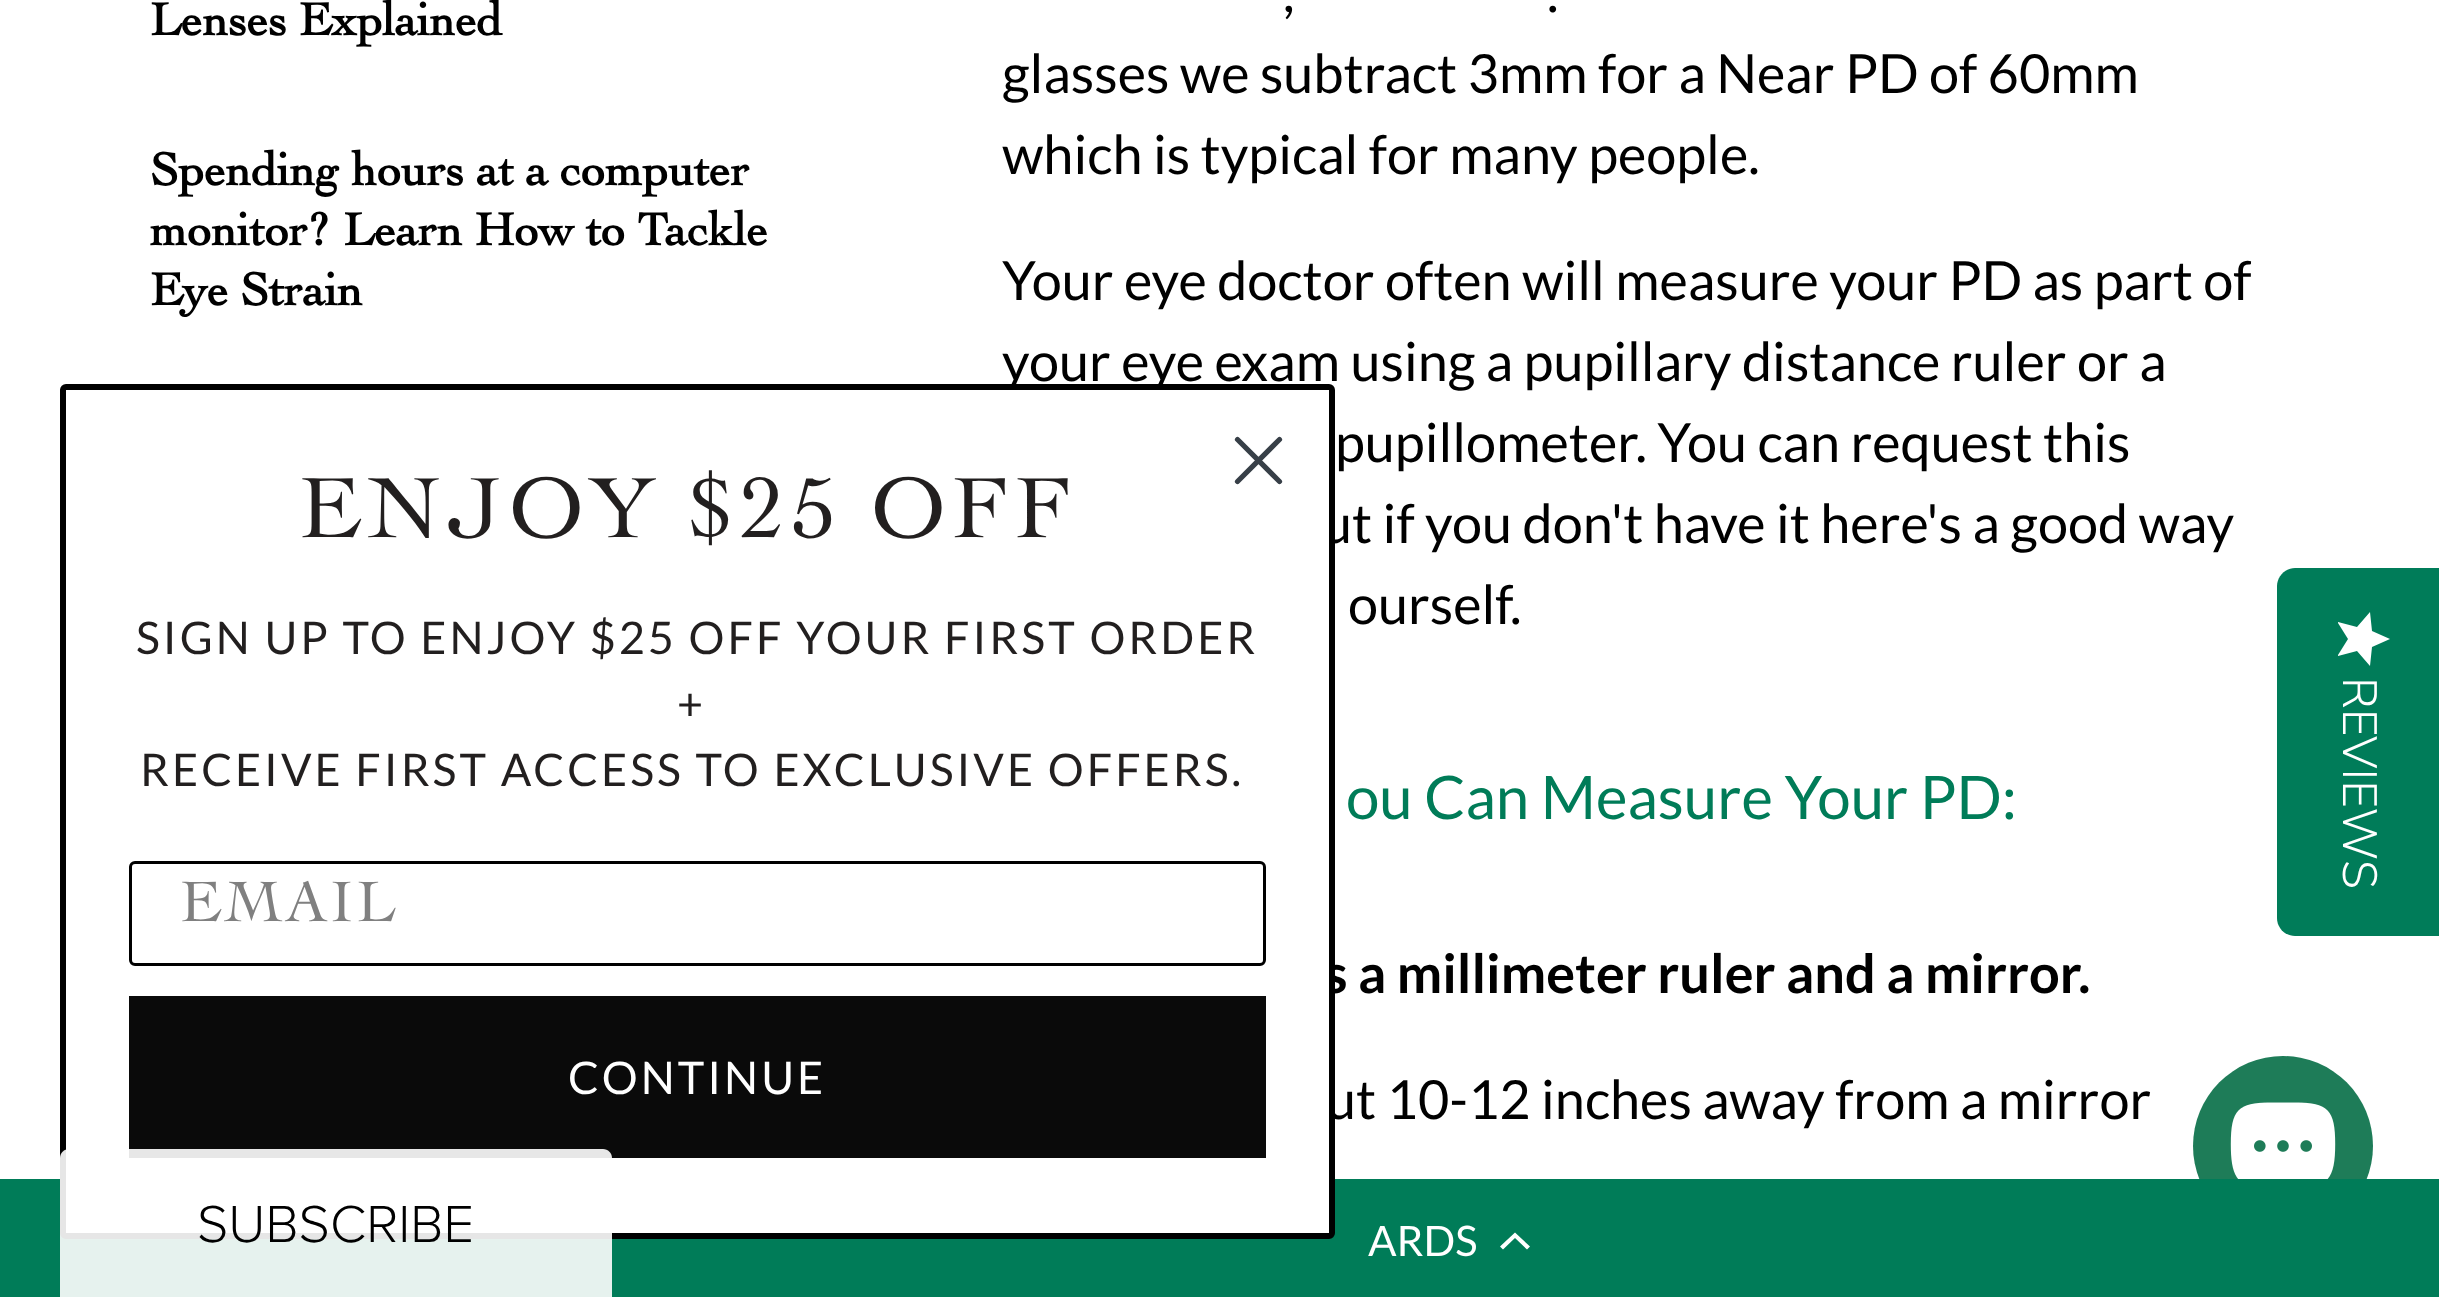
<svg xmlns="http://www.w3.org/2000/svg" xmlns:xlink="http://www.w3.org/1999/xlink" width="2439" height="1297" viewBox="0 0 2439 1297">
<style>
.cls-1{font:bold 48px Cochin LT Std;fill:#000000}
.cls-2{font:54px Lato;fill:#000000}
.cls-3{font:60px Lato;fill:#007c58}
.cls-4{font:bold 54px Lato;fill:#000000}
.cls-5{font:90px Cochin LT Std;letter-spacing:6px;fill:#221f1f}
.cls-6{font:45px Lato;letter-spacing:3px;fill:#221f1f}
.cls-7{font:60px Cochin LT Std;letter-spacing:3px;fill:#808080}
.cls-8{font:45px Lato;letter-spacing:3px;fill:#ffffff}
.cls-9{font:300 48px Nunito Sans;fill:#ffffff}
.cls-10{font:300 54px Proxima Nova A;fill:#000000}
.cls-11{font:42px Lato;fill:#ffffff}
</style>
<defs>
<linearGradient id="g1" gradientUnits="userSpaceOnUse" x1="2390" y1="612" x2="2390" y2="666"><stop offset="1" stop-color="#ffffff"/><stop offset="1" stop-color="#eaeaea"/></linearGradient>
</defs>
<rect width="100%" height="100%" fill="#ffffff"/>
<path fill="#007c59" d="M2439 568V936H2295C2285 936 2277 928 2277 918V586C2277 577 2285 568 2295 568Z"/>
<path fill="url(#g1)" d="M2348 639L2338 623V622L2357 627L2370 612L2372 631L2390 639L2372 647L2370 666L2357 651L2338 656V655Z"/>
<circle fill="#1e7c58" cx="2283" cy="1146" r="90"/>
<rect fill="#007c58" x="0" y="1179" width="2439" height="118"/>
<path fill="#ffffff" d="M1515 1238L1503 1249.5L1500 1246.5L1515 1232.5L1530 1246.5L1527 1249.5Z"/>
<image xlink:href="image0.png" x="2230" y="1102" width="106" height="77"/>
<text class="cls-1" x="150" y="35">Lenses Explained</text>
<text class="cls-1"><tspan x="150" y="185">Spending hours at a computer</tspan><tspan x="150" y="245">monitor? Learn How to Tackle</tspan><tspan x="150" y="305">Eye Strain</tspan></text>
<text class="cls-2" x="1283" y="12">,</text>
<text class="cls-2" x="1547" y="12">.</text>
<text class="cls-2"><tspan x="1002" y="93">glasses we subtract 3mm for a Near PD of 60mm</tspan><tspan x="1002" y="174">which is typical for many people.</tspan></text>
<text class="cls-2"><tspan x="1002" y="300">Your eye doctor often will measure your PD as part of</tspan><tspan x="1002" y="381">your eye exam using a pupillary distance ruler or a</tspan></text>
<text class="cls-2" x="1335" y="462">pupillometer. You can request this</text>
<text class="cls-2" x="1322" y="543">ut if you don't have it here's a good way</text>
<text class="cls-2" x="1348" y="624">ourself.</text>
<text class="cls-3" x="1346" y="819">ou Can Measure Your PD:</text>
<text class="cls-4" x="1324" y="993">s a millimeter ruler and a mirror.</text>
<text class="cls-2" x="1326" y="1119">ut 10-12 inches away from a mirror</text>
<rect fill="#ffffff" stroke="#000000" stroke-width="6" x="63" y="387" width="1269" height="849" rx="3"/>
<path fill="none" stroke="#373f47" stroke-width="5.2" stroke-linecap="round" stroke-linejoin="round" d="M1237.5 439.5L1279.5 481.5M1237.5 481.5L1279.5 439.5Z"/>
<text class="cls-5" x="299" y="537">ENJOY $25 OFF</text>
<text class="cls-6" x="136" y="654">SIGN UP TO ENJOY $25 OFF YOUR FIRST ORDER</text>
<text class="cls-6" x="677" y="720">+</text>
<text class="cls-6" x="140" y="786">RECEIVE FIRST ACCESS TO EXCLUSIVE OFFERS.</text>
<rect fill="none" stroke="#000000" stroke-width="3" x="130.5" y="862.5" width="1134" height="102" rx="4.5"/>
<text class="cls-7" x="180" y="921">EMAIL</text>
<rect fill="#0a0a0a" x="129" y="996" width="1137" height="162"/>
<text class="cls-8" x="568" y="1094">CONTINUE</text>
<text class="cls-9" x="2343" y="677" transform="rotate(90 2343 677)">REVIEWS</text>
<path fill="#ffffff" fill-opacity="0.9" d="M69 1149H603C608 1149 612 1153 612 1158V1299H60V1158C60 1153 64 1149 69 1149Z"/>
<text class="cls-10" x="197" y="1242">SUBSCRIBE</text>
<text class="cls-11" x="1368" y="1256">ARDS</text>
</svg>
